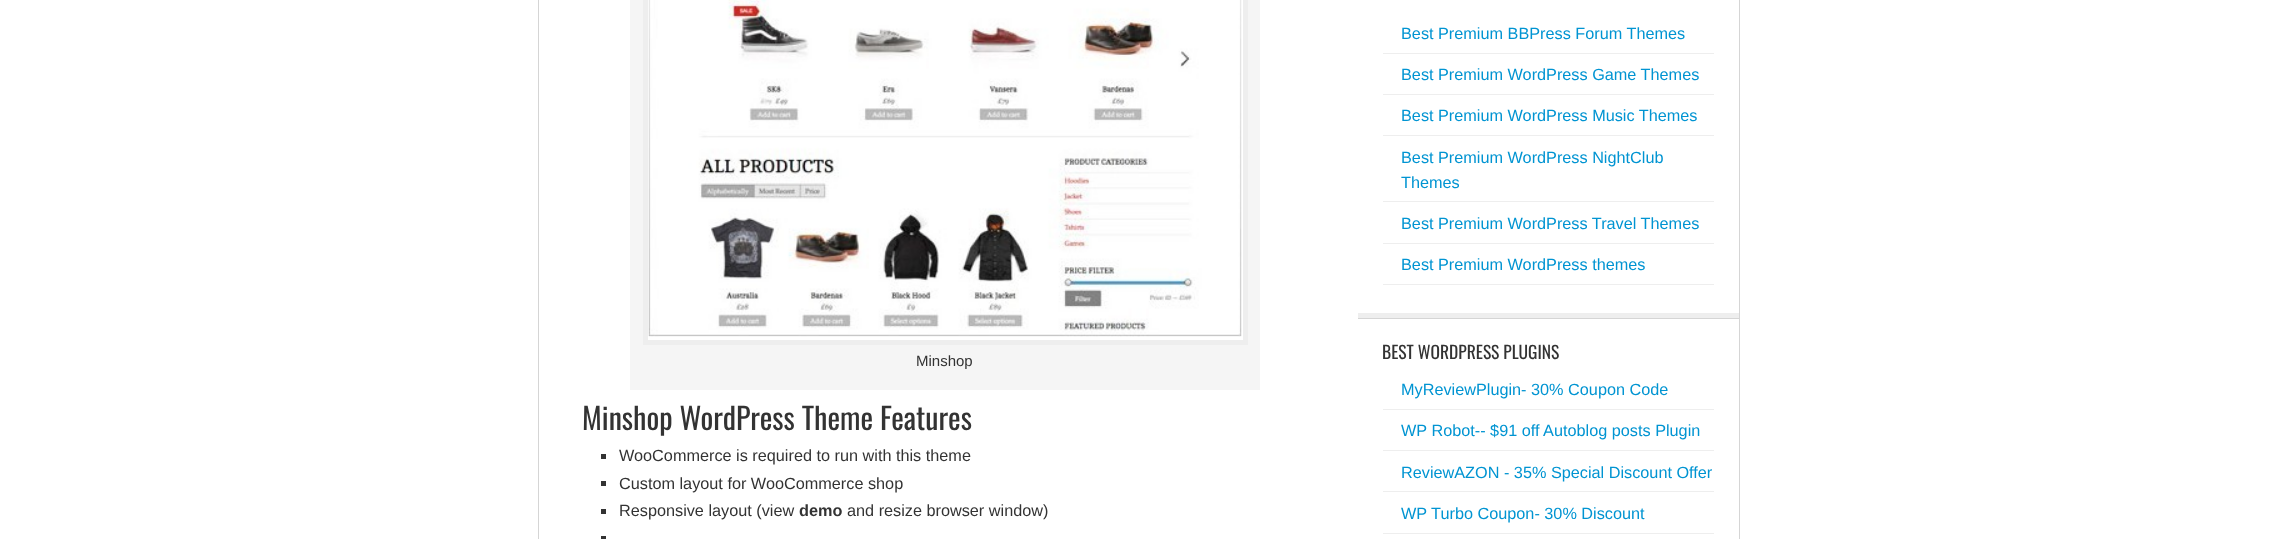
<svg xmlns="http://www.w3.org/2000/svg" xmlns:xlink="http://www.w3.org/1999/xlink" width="2276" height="539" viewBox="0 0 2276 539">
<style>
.cls-1{font:15px Liberation Sans;fill:#333333}
.cls-2{font:30px Oswald;fill:#333333}
.cls-3{font:16.25px Liberation Sans;fill:#333333}
.cls-4{font:bold 16.25px Liberation Sans;fill:#333333}
.cls-5{font:16.25px Liberation Sans;fill:#0094d2}
.cls-6{font:17.5px Oswald;fill:#333333}
</style>
<rect width="100%" height="100%" fill="#ffffff"/>
<rect fill="#d5d5d5" x="1739" y="0" width="1" height="539"/>
<rect fill="#d5d5d5" x="538" y="0" width="1" height="539"/>
<rect fill="#f5f5f5" x="630" y="0" width="630" height="390"/>
<rect fill="#ffffff" stroke="#eeeeee" stroke-width="5" x="645.5" y="-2.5" width="600" height="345"/>
<image xlink:href="image0.png" x="648" y="0" width="594" height="337"/>
<rect fill="#333333" x="601" y="454" width="5" height="5"/>
<rect fill="#333333" x="601" y="481" width="5" height="5"/>
<rect fill="#333333" x="601" y="509" width="5" height="5"/>
<rect fill="#333333" x="601" y="536" width="5" height="3"/>
<rect fill="#d5d5d5" x="1358" y="318" width="381" height="1"/>
<rect fill="#eeeeee" x="1358" y="313" width="381" height="5"/>
<rect fill="#eeeeee" x="1383" y="53" width="331" height="1"/>
<rect fill="#eeeeee" x="1383" y="94" width="331" height="1"/>
<rect fill="#eeeeee" x="1383" y="135" width="331" height="1"/>
<rect fill="#eeeeee" x="1383" y="201" width="331" height="1"/>
<rect fill="#eeeeee" x="1383" y="243" width="331" height="1"/>
<rect fill="#eeeeee" x="1383" y="284" width="331" height="1"/>
<rect fill="#eeeeee" x="1383" y="409" width="331" height="1"/>
<rect fill="#eeeeee" x="1383" y="450" width="331" height="1"/>
<rect fill="#eeeeee" x="1383" y="491" width="331" height="1"/>
<rect fill="#eeeeee" x="1383" y="533" width="331" height="1"/>
<text class="cls-1" x="916" y="366">Minshop</text>
<text class="cls-2" x="582" y="430">Minshop WordPress Theme Features</text>
<text class="cls-3"><tspan x="619" y="461">WooCommerce is required to run with this theme</tspan><tspan x="619" y="489">Custom layout for WooCommerce shop</tspan><tspan x="619" y="516">Responsive layout (view</tspan></text>
<text class="cls-4" x="799" y="516">demo</text>
<text class="cls-3" x="847" y="516">and resize browser window)</text>
<text class="cls-5" x="1401" y="39">Best Premium BBPress Forum Themes</text>
<text class="cls-5" x="1401" y="80">Best Premium WordPress Game Themes</text>
<text class="cls-5" x="1401" y="121">Best Premium WordPress Music Themes</text>
<text class="cls-5"><tspan x="1401" y="163">Best Premium WordPress NightClub</tspan><tspan x="1401" y="188">Themes</tspan></text>
<text class="cls-5" x="1401" y="229">Best Premium WordPress Travel Themes</text>
<text class="cls-5" x="1401" y="270">Best Premium WordPress themes</text>
<text class="cls-6" x="1382" y="359">BEST WORDPRESS PLUGINS</text>
<text class="cls-5" x="1401" y="395">MyReviewPlugin- 30% Coupon Code</text>
<text class="cls-5" x="1401" y="436">WP Robot-- $91 off Autoblog posts Plugin</text>
<text class="cls-5" x="1401" y="478">ReviewAZON - 35% Special Discount Offer</text>
<text class="cls-5" x="1401" y="519">WP Turbo Coupon- 30% Discount</text>
</svg>
